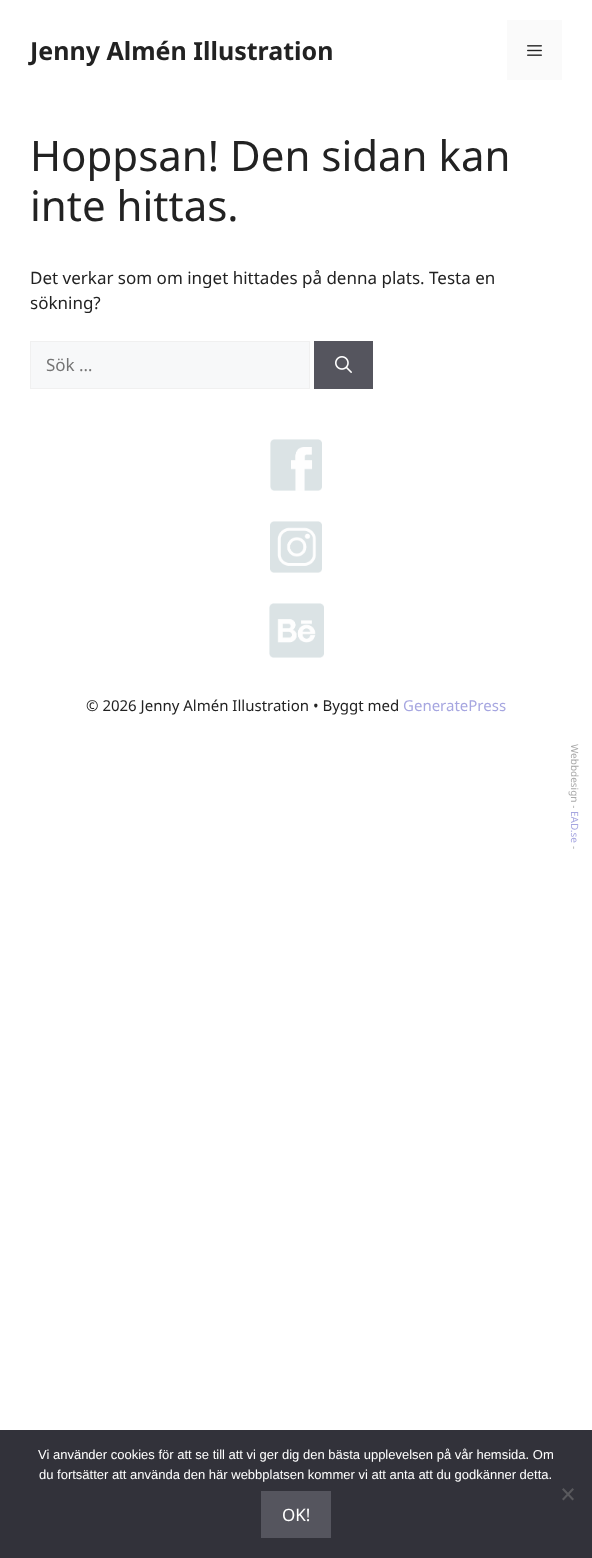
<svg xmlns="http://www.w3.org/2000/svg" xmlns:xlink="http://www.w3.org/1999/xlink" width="592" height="1558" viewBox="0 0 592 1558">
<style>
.cls-1{font:bold 25px Noto Sans;fill:#222222}
.cls-2{font:42px Noto Sans;fill:#222222}
.cls-3{font:17px Noto Sans;fill:#222222}
.cls-4{font:17px Noto Sans;fill:#757575}
.cls-5{font:15px Noto Sans;fill:#222222}
.cls-6{font:15px Noto Sans;fill:#a6a6e0}
.cls-7{font:10px Noto Sans;fill:#aaaaaa}
.cls-8{font:10px Noto Sans;fill:#a6a6e0}
.cls-9{font:13px Liberation Sans;fill:#ffffff}
.cls-10{font:17px Noto Sans;fill:#ffffff}
</style>
<rect width="100%" height="100%" fill="#ffffff"/>
<rect fill="#fafafa" x="507" y="20" width="55" height="60"/>
<image xlink:href="image0.png" x="527" y="45" width="15" height="11"/>
<rect fill="#f7f8f9" stroke="#f0f0f0" x="30.5" y="341.5" width="279" height="47"/>
<rect fill="#55555e" x="314" y="341" width="59" height="48"/>
<image xlink:href="image1.png" x="335" y="356" width="17" height="17"/>
<image xlink:href="image2.png" x="270" y="439" width="52" height="52"/>
<image xlink:href="image3.png" x="270" y="521" width="52" height="52"/>
<image xlink:href="image4.png" x="269" y="603" width="55" height="55"/>
<rect fill="#32323a" x="0" y="1430" width="592" height="128"/>
<path fill="#59595d" d="M572.5 1488L574 1489.5L563.5 1500.5L562 1499Z"/>
<path fill="#59595d" d="M562 1489.5L563.5 1488L574 1499L572.5 1500.5Z"/>
<rect fill="#55555e" x="261" y="1491" width="70" height="47"/>
<text class="cls-1" x="30" y="60">Jenny Almén Illustration</text>
<text class="cls-2"><tspan x="30" y="171">Hoppsan! Den sidan kan</tspan><tspan x="30" y="221">inte hittas.</tspan></text>
<text class="cls-3"><tspan x="30" y="284">Det verkar som om inget hittades på denna plats. Testa en</tspan><tspan x="30" y="309">sökning?</tspan></text>
<text class="cls-4" x="46" y="371">Sök …</text>
<text class="cls-5" x="86" y="711">© 2026 Jenny Almén Illustration • Byggt med</text>
<text class="cls-6" x="403" y="711">GeneratePress</text>
<text class="cls-7" x="571" y="744" transform="rotate(90 571 744)">Webbdesign -</text>
<text class="cls-8" x="571" y="811" transform="rotate(90 571 811)">EAD.se</text>
<text class="cls-7" x="571" y="846" transform="rotate(90 571 846)">-</text>
<text class="cls-9" x="38" y="1459">Vi använder cookies för att se till att vi ger dig den bästa upplevelsen på vår hemsida. Om</text>
<text class="cls-9" x="39" y="1479">du fortsätter att använda den här webbplatsen kommer vi att anta att du godkänner detta.</text>
<text class="cls-10" x="282" y="1521">OK!</text>
</svg>
